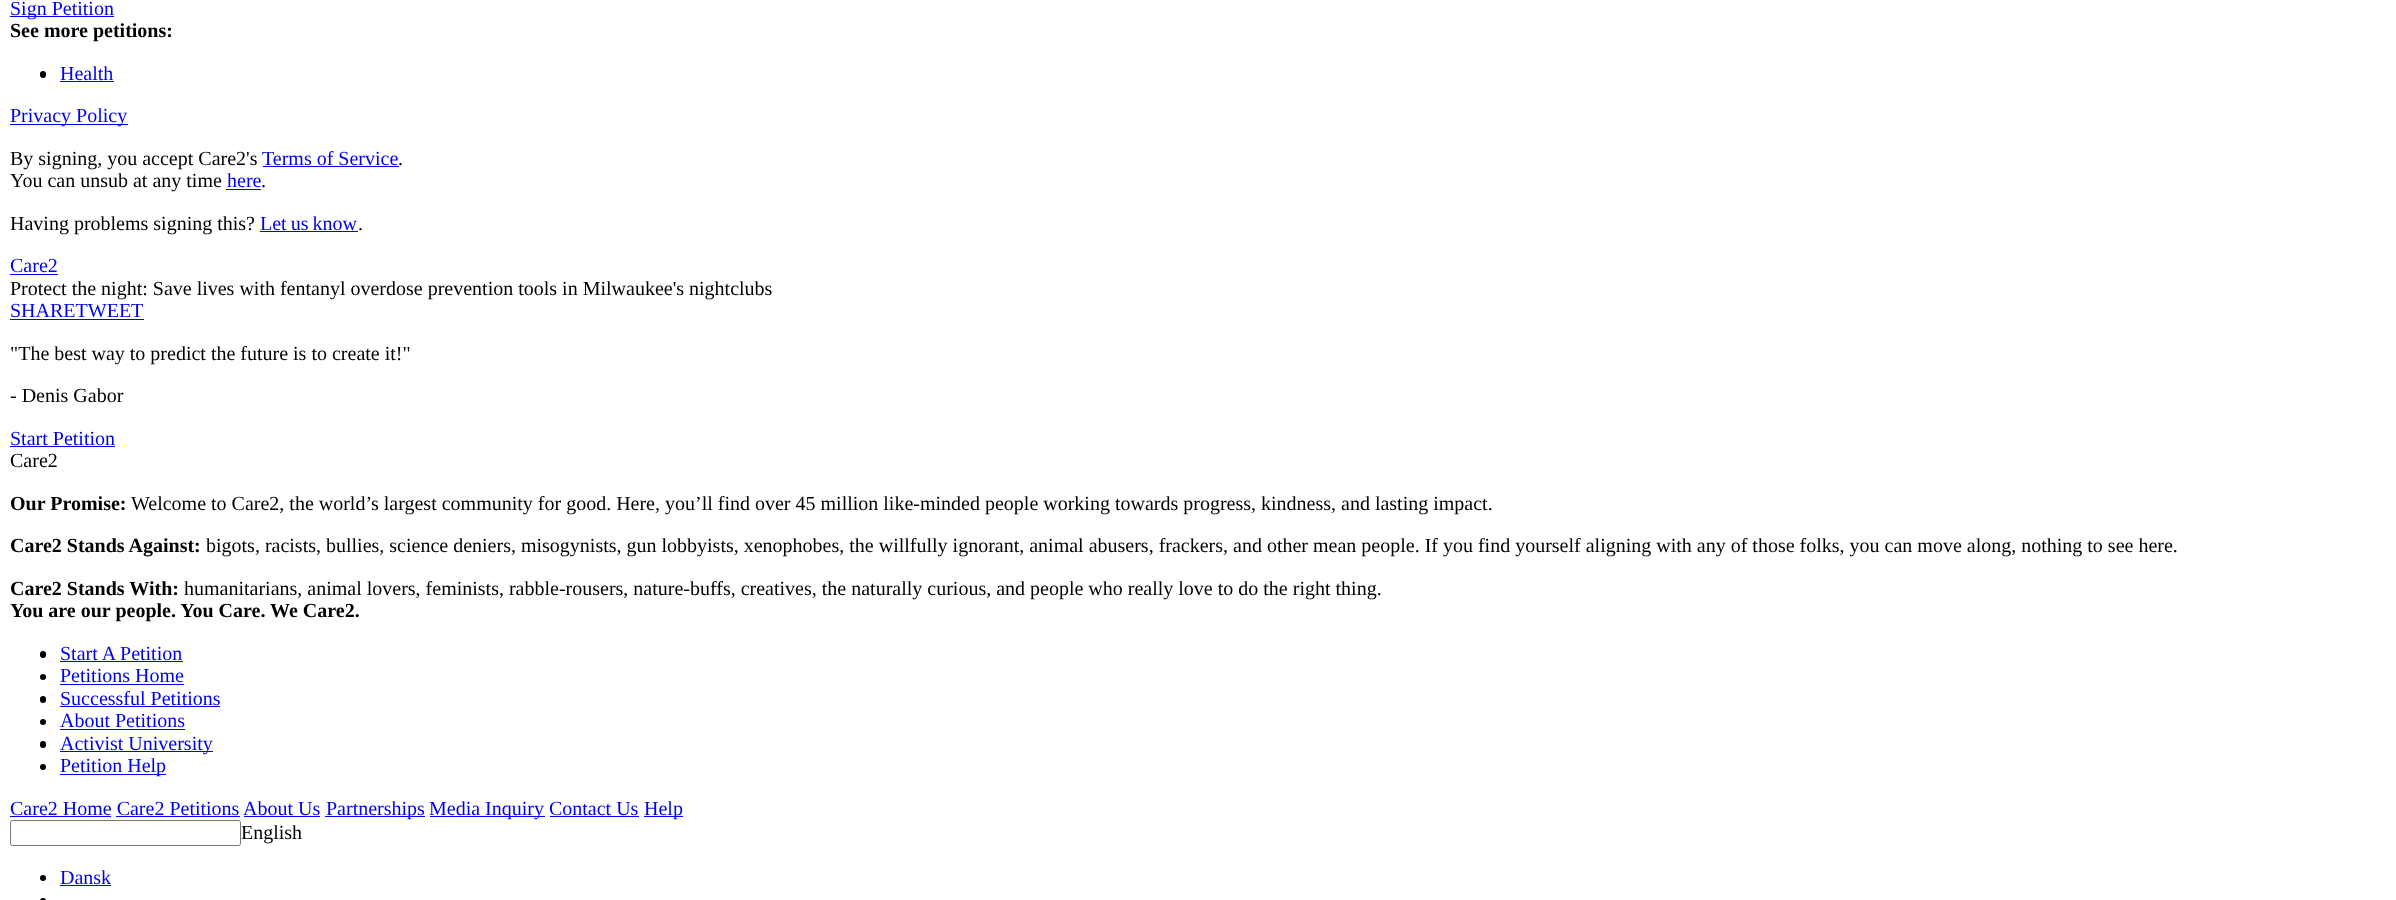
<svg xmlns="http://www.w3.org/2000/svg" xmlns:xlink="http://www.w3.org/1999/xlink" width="2396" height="900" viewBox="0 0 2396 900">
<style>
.cls-1{font:20px Liberation Serif;fill:#0000ee}
.cls-2{font:bold 20px Liberation Serif;fill:#000000}
.cls-3{font:20px Liberation Serif;fill:#000000}
</style>
<rect width="100%" height="100%" fill="#ffffff"/>
<rect fill="#0000ee" x="10" y="16" width="104" height="1"/>
<rect fill="#000000" x="40" y="71" width="6" height="7" rx="3"/>
<rect fill="#0000ee" x="60" y="81" width="54" height="1"/>
<rect fill="#0000ee" x="10" y="124" width="118" height="1"/>
<rect fill="#0000ee" x="263" y="166" width="136" height="1"/>
<rect fill="#0000ee" x="226" y="189" width="35" height="1"/>
<rect fill="#0000ee" x="260" y="231" width="98" height="1"/>
<rect fill="#0000ee" x="10" y="274" width="48" height="1"/>
<rect fill="#0000ee" x="10" y="319" width="134" height="1"/>
<rect fill="#0000ee" x="10" y="446" width="105" height="1"/>
<rect fill="#000000" x="40" y="651" width="6" height="7" rx="3"/>
<rect fill="#0000ee" x="60" y="661" width="123" height="1"/>
<circle fill="#000000" cx="43" cy="677" r="3"/>
<rect fill="#0000ee" x="60" y="684" width="124" height="1"/>
<rect fill="#000000" x="40" y="696" width="6" height="7" rx="3"/>
<rect fill="#0000ee" x="60" y="706" width="160" height="1"/>
<circle fill="#000000" cx="43" cy="722" r="3"/>
<rect fill="#0000ee" x="60" y="729" width="125" height="1"/>
<rect fill="#000000" x="40" y="741" width="6" height="7" rx="3"/>
<rect fill="#0000ee" x="60" y="751" width="153" height="1"/>
<circle fill="#000000" cx="43" cy="767" r="3"/>
<rect fill="#0000ee" x="60" y="774" width="106" height="1"/>
<rect fill="#0000ee" x="10" y="816" width="101" height="1"/>
<rect fill="#0000ee" x="244" y="816" width="76" height="1"/>
<rect fill="#0000ee" x="325" y="816" width="100" height="1"/>
<rect fill="#0000ee" x="430" y="816" width="115" height="1"/>
<rect fill="#0000ee" x="644" y="816" width="39" height="1"/>
<rect fill="#0000ee" x="116" y="816" width="124" height="1"/>
<rect fill="#0000ee" x="550" y="816" width="89" height="1"/>
<rect fill="none" stroke="#767676" x="10.5" y="820.5" width="230" height="25" rx="2"/>
<circle fill="#000000" cx="43" cy="878" r="3"/>
<rect fill="#0000ee" x="60" y="885" width="51" height="1"/>
<rect fill="#000000" x="40" y="898" width="6" height="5" rx="3"/>
<text class="cls-1" x="10" y="15">Sign Petition</text>
<text class="cls-2" x="10" y="37">See more petitions:</text>
<text class="cls-1" x="60" y="80">Health</text>
<text class="cls-1" x="10" y="122">Privacy Policy</text>
<text class="cls-3" x="10" y="165">By signing, you accept Care2's</text>
<text class="cls-1" x="262" y="165">Terms of Service</text>
<text class="cls-3" x="398" y="165">.</text>
<text class="cls-3" x="10" y="187">You can unsub at any time</text>
<text class="cls-1" x="227" y="187">here</text>
<text class="cls-3" x="261" y="187">.</text>
<text class="cls-3" x="10" y="230">Having problems signing this?</text>
<text class="cls-1" x="260" y="230" word-spacing="-1">Let us know</text>
<text class="cls-3" x="358" y="230">.</text>
<text class="cls-1" x="10" y="272">Care2</text>
<text class="cls-3" x="10" y="295">Protect the night: Save lives with fentanyl overdose prevention tools in Milwaukee's nightclubs</text>
<text class="cls-1" x="10" y="317">SHARETWEET</text>
<text class="cls-3" x="10" y="360">"The best way to predict the future is to create it!"</text>
<text class="cls-3" x="10" y="402">- Denis Gabor</text>
<text class="cls-1" x="10" y="445">Start Petition</text>
<text class="cls-3" x="10" y="467">Care2</text>
<text class="cls-2" x="10" y="510">Our Promise:</text>
<text class="cls-3" x="131" y="510">Welcome to Care2, the world’s largest community for good. Here, you’ll find over 45 million like-minded people working towards progress, kindness, and lasting impact.</text>
<text class="cls-2" x="10" y="552">Care2 Stands Against:</text>
<text class="cls-3" x="206" y="552">bigots, racists, bullies, science deniers, misogynists, gun lobbyists, xenophobes, the willfully ignorant, animal abusers, frackers, and other mean people. If you find yourself aligning with any of those folks, you can move along, nothing to see here.</text>
<text class="cls-2" x="10" y="595">Care2 Stands With:</text>
<text class="cls-3" x="184" y="595">humanitarians, animal lovers, feminists, rabble-rousers, nature-buffs, creatives, the naturally curious, and people who really love to do the right thing.</text>
<text class="cls-2" x="10" y="617">You are our people. You Care. We Care2.</text>
<text class="cls-1"><tspan x="60" y="660">Start A Petition</tspan><tspan x="60" y="682">Petitions Home</tspan><tspan x="60" y="705">Successful Petitions</tspan><tspan x="60" y="727">About Petitions</tspan><tspan x="60" y="750">Activist University</tspan><tspan x="60" y="772">Petition Help</tspan></text>
<text class="cls-1" x="10" y="815">Care2 Home Care2 Petitions</text>
<text class="cls-1" x="243" y="815">About Us</text>
<text class="cls-1" x="326" y="815">Partnerships</text>
<text class="cls-1" x="429" y="815">Media Inquiry Contact Us</text>
<text class="cls-1" x="644" y="815">Help</text>
<text class="cls-3" x="241" y="839">English</text>
<text class="cls-1" x="60" y="884">Dansk</text>
</svg>
